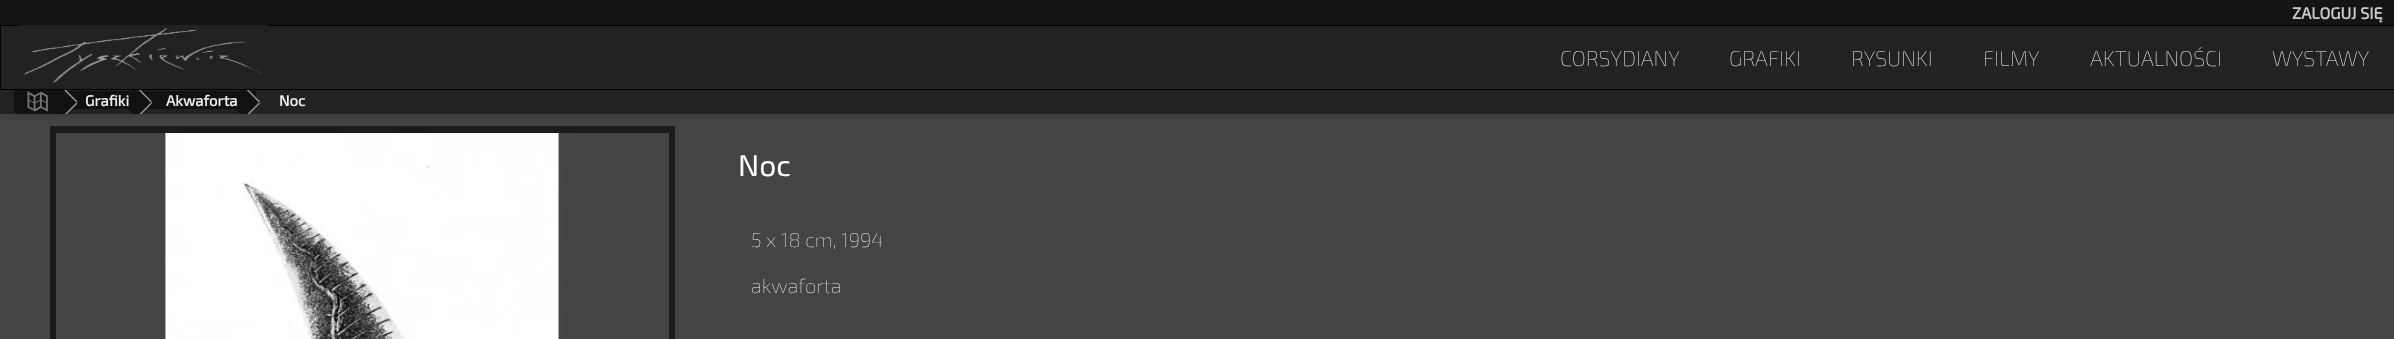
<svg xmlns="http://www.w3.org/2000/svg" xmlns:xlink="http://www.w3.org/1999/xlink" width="2394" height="339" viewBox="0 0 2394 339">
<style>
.cls-1{font:bold 16.25px 'Exo 2';fill:#cccccc}
.cls-2{font:100 21.25px 'Exo 2';fill:#eeeeee}
.cls-3{font:bold 15px 'Exo 2';fill:#eeeeee}
.cls-4{font:30px 'Exo 2';fill:#ffffff}
.cls-5{font:100 20px 'Exo 2';fill:#eeeeee}
</style>
<defs>
<clipPath id="clip1"><rect x="0" y="89" width="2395" height="25"/></clipPath>
</defs>
<rect width="100%" height="100%" fill="#444444"/>
<rect fill="#141414" x="0" y="0" width="2394" height="25"/>
<rect fill="#1b1b1b" x="50" y="126" width="625" height="213"/>
<rect fill="#000000" fill-opacity="0.2" filter="blur(5px)" x="0" y="88" width="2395" height="26"/>
<rect fill="#222222" x="0" y="90" width="2394" height="24"/>
<path fill="#111111" d="M18 89H61V114H18C16 114 14 112 14 110V93C14 91 16 89 18 89Z"/>
<rect fill="#111111" x="67" y="91" width="66" height="18"/>
<g clip-path="url(#clip1)">
<path fill="#111111" d="M64.5 88.5L76.5 100.5C77.5 101.5 77.5 103.5 76.5 104.5L64.5 116.5C63.5 117.5 61.5 117.5 60.5 116.5L48.5 104.5C47.5 103.5 47.5 101.5 48.5 100.5L60.5 88.5C61.5 87.5 63.5 87.5 64.5 88.5Z"/>
</g>
<path fill="#999999" d="M63.5 87.5L77.5 101.5L76.5 102.5L62.5 88.5Z"/>
<g clip-path="url(#clip1)">
<path fill="#111111" d="M139 88.5L151 100.5C152 101.5 152 103.5 151 104.5L139 116.5C138 117.5 136.5 117.5 135.5 116.5L123 104.5C122 103.5 122 101.5 123 100.5L135.5 88.5C136.5 87.5 138 87.5 139 88.5Z"/>
</g>
<rect fill="#111111" x="142" y="91" width="114" height="18"/>
<path fill="#999999" d="M138 87.5L152 101.5L151 102.5L137 88.5Z"/>
<g clip-path="url(#clip1)">
<path fill="#111111" d="M246.5 88.5L259 100.5C260 101.5 260 103.5 259 104.5L246.5 116.5C245.5 117.5 244 117.5 243 116.5L231 104.5C230 103.5 230 101.5 231 100.5L243 88.5C244 87.5 245.5 87.5 246.5 88.5Z"/>
</g>
<path fill="#999999" d="M246 87.5L260 101.5L259 102.5L245 88.5Z"/>
<rect fill="#222222" stroke="#000000" x="0.5" y="25.5" width="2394" height="64"/>
<image xlink:href="image0.png" x="18" y="25" width="250" height="58"/>
<image xlink:href="image1.png" x="27" y="91" width="21" height="21"/>
<g clip-path="url(#clip1)">
<path fill="#999999" d="M76.5 102.5L77.5 103.5L63.5 117.5L62.5 116.5Z"/>
<path fill="#999999" d="M151 102.5L152 103.5L138 117.5L137 116.5Z"/>
<path fill="#999999" d="M259 102.5L260 103.5L246 117.5L245 116.5Z"/>
</g>
<image xlink:href="image2.png" x="56" y="133" width="613" height="206"/>
<text class="cls-1" x="2292" y="19">ZALOGUJ SIĘ</text>
<text class="cls-2" x="1560" y="66">CORSYDIANY</text>
<text class="cls-2" x="1729" y="66">GRAFIKI</text>
<text class="cls-2" x="1851" y="66">RYSUNKI</text>
<text class="cls-2" x="1983" y="66">FILMY</text>
<text class="cls-2" x="2090" y="66">AKTUALNOŚCI</text>
<text class="cls-2" x="2272" y="66">WYSTAWY</text>
<text class="cls-3" x="85" y="106">Grafiki</text>
<text class="cls-3" x="166" y="106">Akwaforta</text>
<text class="cls-3" x="279" y="106">Noc</text>
<text class="cls-4" x="738" y="176">Noc</text>
<text class="cls-5" x="751" y="247">5 x 18 cm, 1994</text>
<text class="cls-5" x="751" y="293">akwaforta</text>
</svg>
